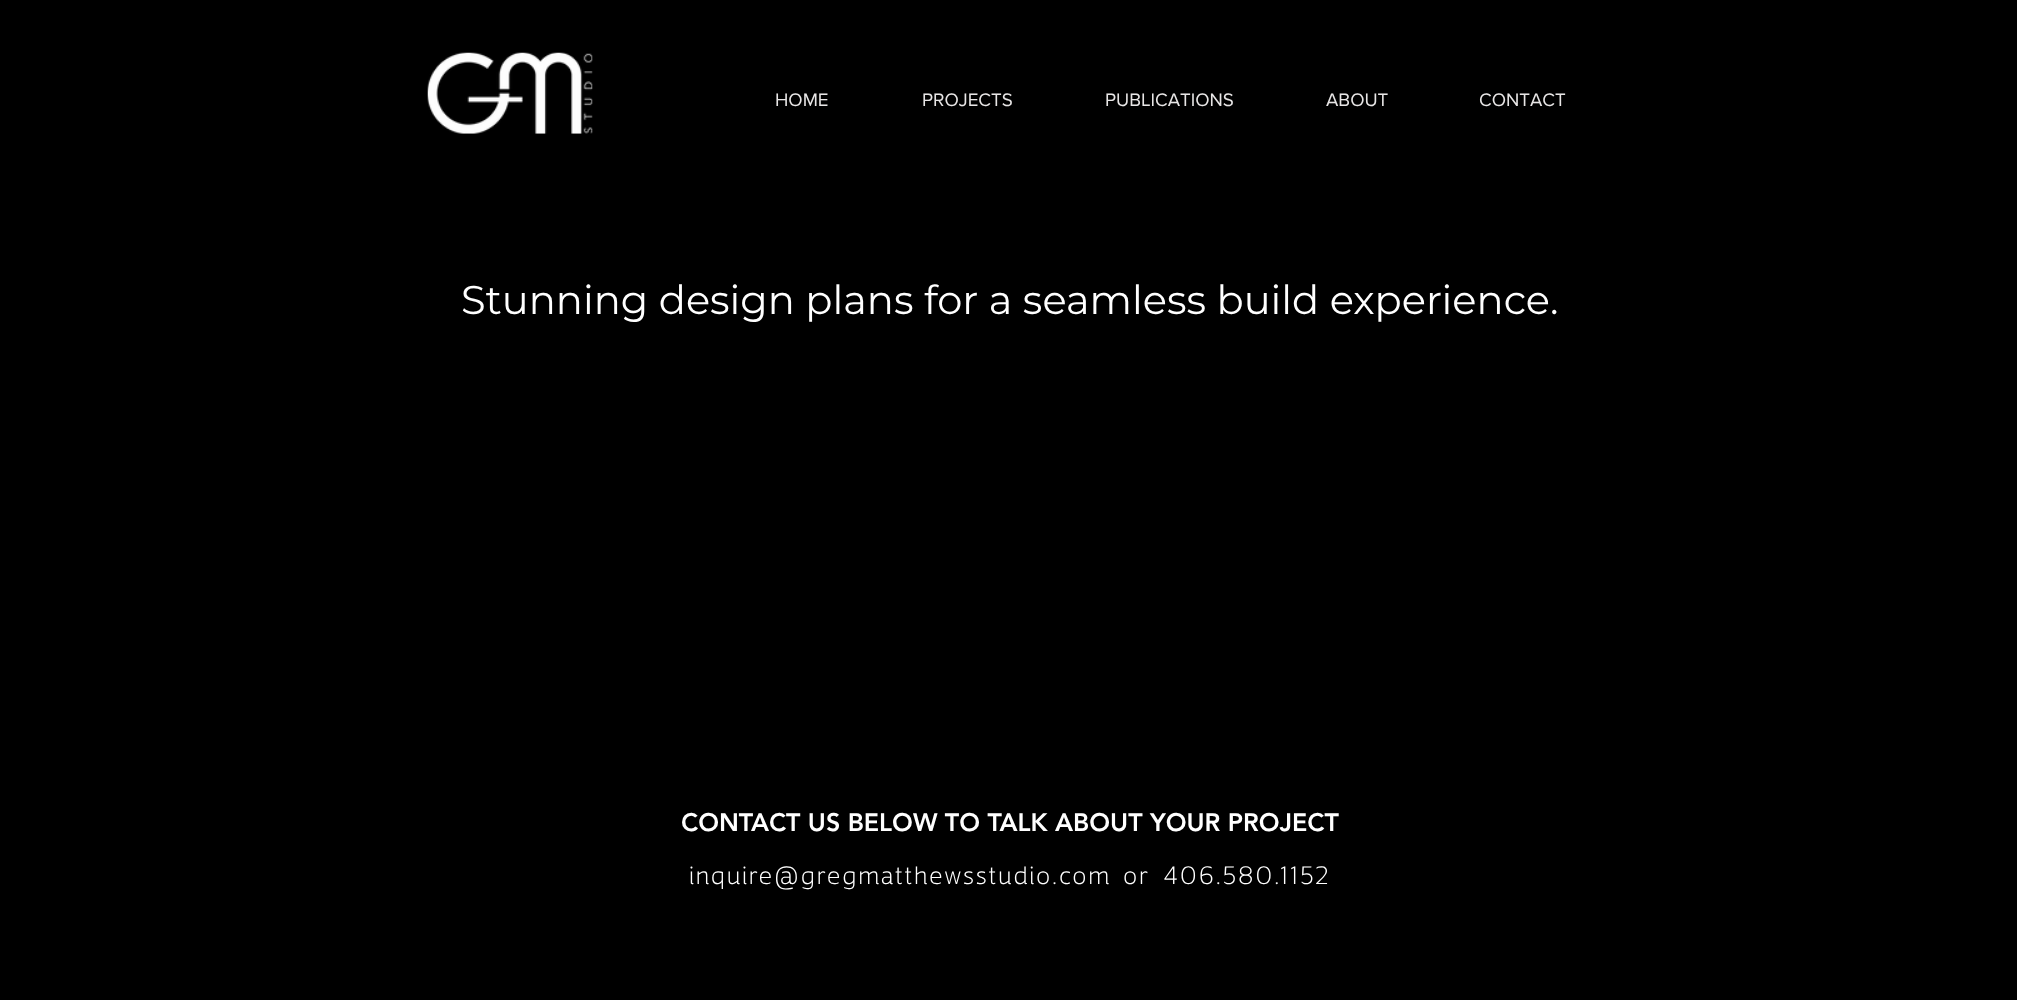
<svg xmlns="http://www.w3.org/2000/svg" xmlns:xlink="http://www.w3.org/1999/xlink" width="2017" height="1000" viewBox="0 0 2017 1000">
<style>
.cls-1{font:18.75px 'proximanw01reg';fill:#e8e6e6}
.cls-2{font:40px Montserrat;fill:#ffffff}
.cls-3{font:900 25px 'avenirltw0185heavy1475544';fill:#ffffff}
.cls-4{font:300 37.5px 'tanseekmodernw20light';letter-spacing:1.9px;fill:#ffffff}
</style>
<rect width="100%" height="100%" fill="#000000"/>
<image xlink:href="image0.png" x="427" y="52" width="166" height="82"/>
<text class="cls-1" x="775" y="106">HOME</text>
<text class="cls-1" x="922" y="106">PROJECTS</text>
<text class="cls-1" x="1105" y="106">PUBLICATIONS</text>
<text class="cls-1" x="1326" y="106">ABOUT</text>
<text class="cls-1" x="1479" y="106">CONTACT</text>
<text class="cls-2" x="461" y="314">Stunning design plans for a seamless build experience.</text>
<text class="cls-3" x="681" y="831">CONTACT US BELOW TO TALK ABOUT YOUR PROJECT</text>
<text class="cls-4" x="689" y="884">inquire@gregmatthewsstudio.com</text>
<text class="cls-4" xml:space="preserve" x="1123" y="884">or  406.580.1152</text>
</svg>
